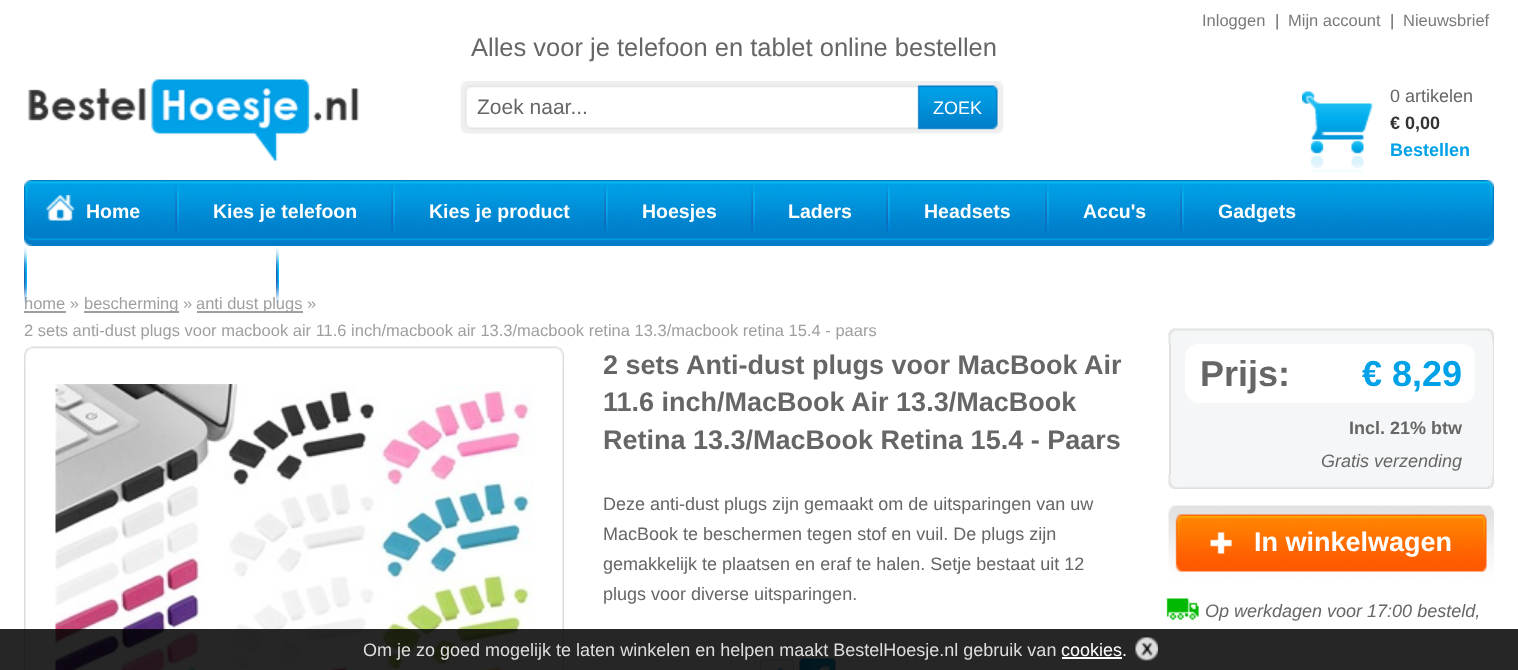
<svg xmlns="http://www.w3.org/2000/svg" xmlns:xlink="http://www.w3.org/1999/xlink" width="1518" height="670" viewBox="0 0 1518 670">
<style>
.cls-1{font:16.5px Liberation Sans;fill:#7a7a7a}
.cls-2{font:16.5px Liberation Sans;fill:#666666}
.cls-3{font:25.5px Liberation Sans;fill:#666666}
.cls-4{font:21px Liberation Sans;fill:#666666}
.cls-5{font:18px Liberation Sans;fill:#ffffff}
.cls-6{font:18px Liberation Sans;fill:#666666}
.cls-7{font:bold 18px Liberation Sans;fill:#333333}
.cls-8{font:bold 18px Liberation Sans;fill:#00a1e7}
.cls-9{font:bold 19.5px Liberation Sans;fill:#ffffff}
.cls-10{font:16.5px Liberation Sans;fill:#9f9f9f}
.cls-11{font:bold 27px Liberation Sans;fill:#666666}
.cls-12{font:bold 36px Liberation Sans;fill:#666666}
.cls-13{font:bold 36px Liberation Sans;fill:#00a1e7}
.cls-14{font:bold 18px Liberation Sans;fill:#666666}
.cls-15{font:italic 18px Liberation Sans;fill:#666666}
.cls-16{font:bold 27px Liberation Sans;fill:#ffffff}
.cls-17{font:18px Liberation Sans;fill:#dedede}
</style>
<rect width="100%" height="100%" fill="#ffffff"/>
<image xlink:href="image0.png" x="28" y="79" width="331" height="82"/>
<image xlink:href="image1.png" x="460" y="81" width="544" height="53"/>
<image xlink:href="image2.png" x="1302" y="91" width="71" height="82"/>
<image xlink:href="image3.png" x="24" y="180" width="1470" height="66"/>
<image xlink:href="image4.png" x="46" y="195" width="29" height="26"/>
<image xlink:href="image5.png" x="175" y="182" width="4" height="52"/>
<image xlink:href="image6.png" x="391" y="182" width="4" height="52"/>
<image xlink:href="image7.png" x="604" y="182" width="4" height="52"/>
<image xlink:href="image8.png" x="751" y="182" width="4" height="52"/>
<image xlink:href="image9.png" x="886" y="182" width="4" height="52"/>
<image xlink:href="image10.png" x="1045" y="182" width="4" height="52"/>
<image xlink:href="image11.png" x="1180" y="182" width="4" height="52"/>
<rect fill="#9f9f9f" x="24" y="311" width="42" height="2"/>
<rect fill="#9f9f9f" x="84" y="311" width="95" height="2"/>
<rect fill="#9f9f9f" x="197" y="311" width="106" height="2"/>
<image xlink:href="image14.png" x="24" y="346" width="540" height="16"/>
<image xlink:href="image15.png" x="24" y="361" width="540" height="309"/>
<image xlink:href="image16.png" x="55" y="384" width="479" height="286"/>
<image xlink:href="image17.png" x="760" y="659" width="34" height="11"/>
<image xlink:href="image18.png" x="799" y="658" width="37" height="12"/>
<rect fill="#f5f6f7" x="1171" y="343" width="322" height="131"/>
<rect fill="#e0e0e0" x="1493" y="343" width="1" height="131"/>
<rect fill="#e0e0e0" x="1169" y="343" width="2" height="131"/>
<image xlink:href="image20.png" x="1185" y="343" width="290" height="60"/>
<image xlink:href="image19.png" x="1168" y="328" width="326" height="16"/>
<image xlink:href="image21.png" x="1168" y="474" width="326" height="15"/>
<image xlink:href="image22.png" x="1168" y="504" width="326" height="78"/>
<image xlink:href="image23.png" x="1166" y="598" width="33" height="22"/>
<rect fill="#000000" fill-opacity="0.85" x="0" y="629" width="1518" height="41"/>
<rect fill="#ffffff" x="1062" y="657" width="60" height="2"/>
<image xlink:href="image24.png" x="1135" y="637" width="23" height="24"/>
<text class="cls-1" x="1202" y="26">Inloggen</text>
<text class="cls-2" x="1275" y="26">|</text>
<text class="cls-1" x="1288" y="26">Mijn account</text>
<text class="cls-2" x="1390" y="26">|</text>
<text class="cls-1" x="1403" y="26">Nieuwsbrief</text>
<text class="cls-3" x="471" y="56">Alles voor je telefoon en tablet online bestellen</text>
<text class="cls-4" x="477" y="114">Zoek naar...</text>
<text class="cls-5" x="933" y="114">ZOEK</text>
<text class="cls-6" x="1390" y="102">0 artikelen</text>
<text class="cls-7" x="1390" y="129">€ 0,00</text>
<text class="cls-8" x="1390" y="156">Bestellen</text>
<text class="cls-9" x="86" y="218">Home</text>
<text class="cls-9" x="213" y="218">Kies je telefoon</text>
<text class="cls-9" x="429" y="218">Kies je product</text>
<text class="cls-9" x="642" y="218">Hoesjes</text>
<text class="cls-9" x="788" y="218">Laders</text>
<text class="cls-9" x="924" y="218">Headsets</text>
<text class="cls-9" x="1083" y="218">Accu's</text>
<text class="cls-9" x="1218" y="218">Gadgets</text>
<text class="cls-10" x="24" y="309">home »</text>
<image xlink:href="image12.png" x="24" y="247" width="3" height="56"/>
<text class="cls-10" x="84" y="309">bescherming »</text>
<text class="cls-10" x="196" y="309">anti dust plugs »</text>
<image xlink:href="image13.png" x="276" y="247" width="3" height="56"/>
<text class="cls-10" x="24" y="336">2 sets anti-dust plugs voor macbook air 11.6 inch/macbook air 13.3/macbook retina 13.3/macbook retina 15.4 - paars</text>
<text class="cls-11"><tspan x="603" y="374">2 sets Anti-dust plugs voor MacBook Air</tspan><tspan x="603" y="411">11.6 inch/MacBook Air 13.3/MacBook</tspan><tspan x="603" y="449">Retina 13.3/MacBook Retina 15.4 - Paars</tspan></text>
<text class="cls-6"><tspan x="603" y="510">Deze anti-dust plugs zijn gemaakt om de uitsparingen van uw</tspan><tspan x="603" y="540">MacBook te beschermen tegen stof en vuil. De plugs zijn</tspan><tspan x="603" y="570">gemakkelijk te plaatsen en eraf te halen. Setje bestaat uit 12</tspan><tspan x="603" y="600">plugs voor diverse uitsparingen.</tspan></text>
<text class="cls-12" x="1200" y="386">Prijs:</text>
<text class="cls-13" x="1362" y="386">€ 8,29</text>
<text class="cls-14" x="1349" y="434">Incl. 21% btw</text>
<text class="cls-15" x="1321" y="467">Gratis verzending</text>
<text class="cls-16" x="1254" y="551">In winkelwagen</text>
<text class="cls-15" x="1205" y="617">Op werkdagen voor 17:00 besteld,</text>
<text class="cls-17" x="363" y="656">Om je zo goed mogelijk te laten winkelen en helpen maakt BestelHoesje.nl gebruik van</text>
<text class="cls-5" x="1061" y="656">cookies.</text>
</svg>
